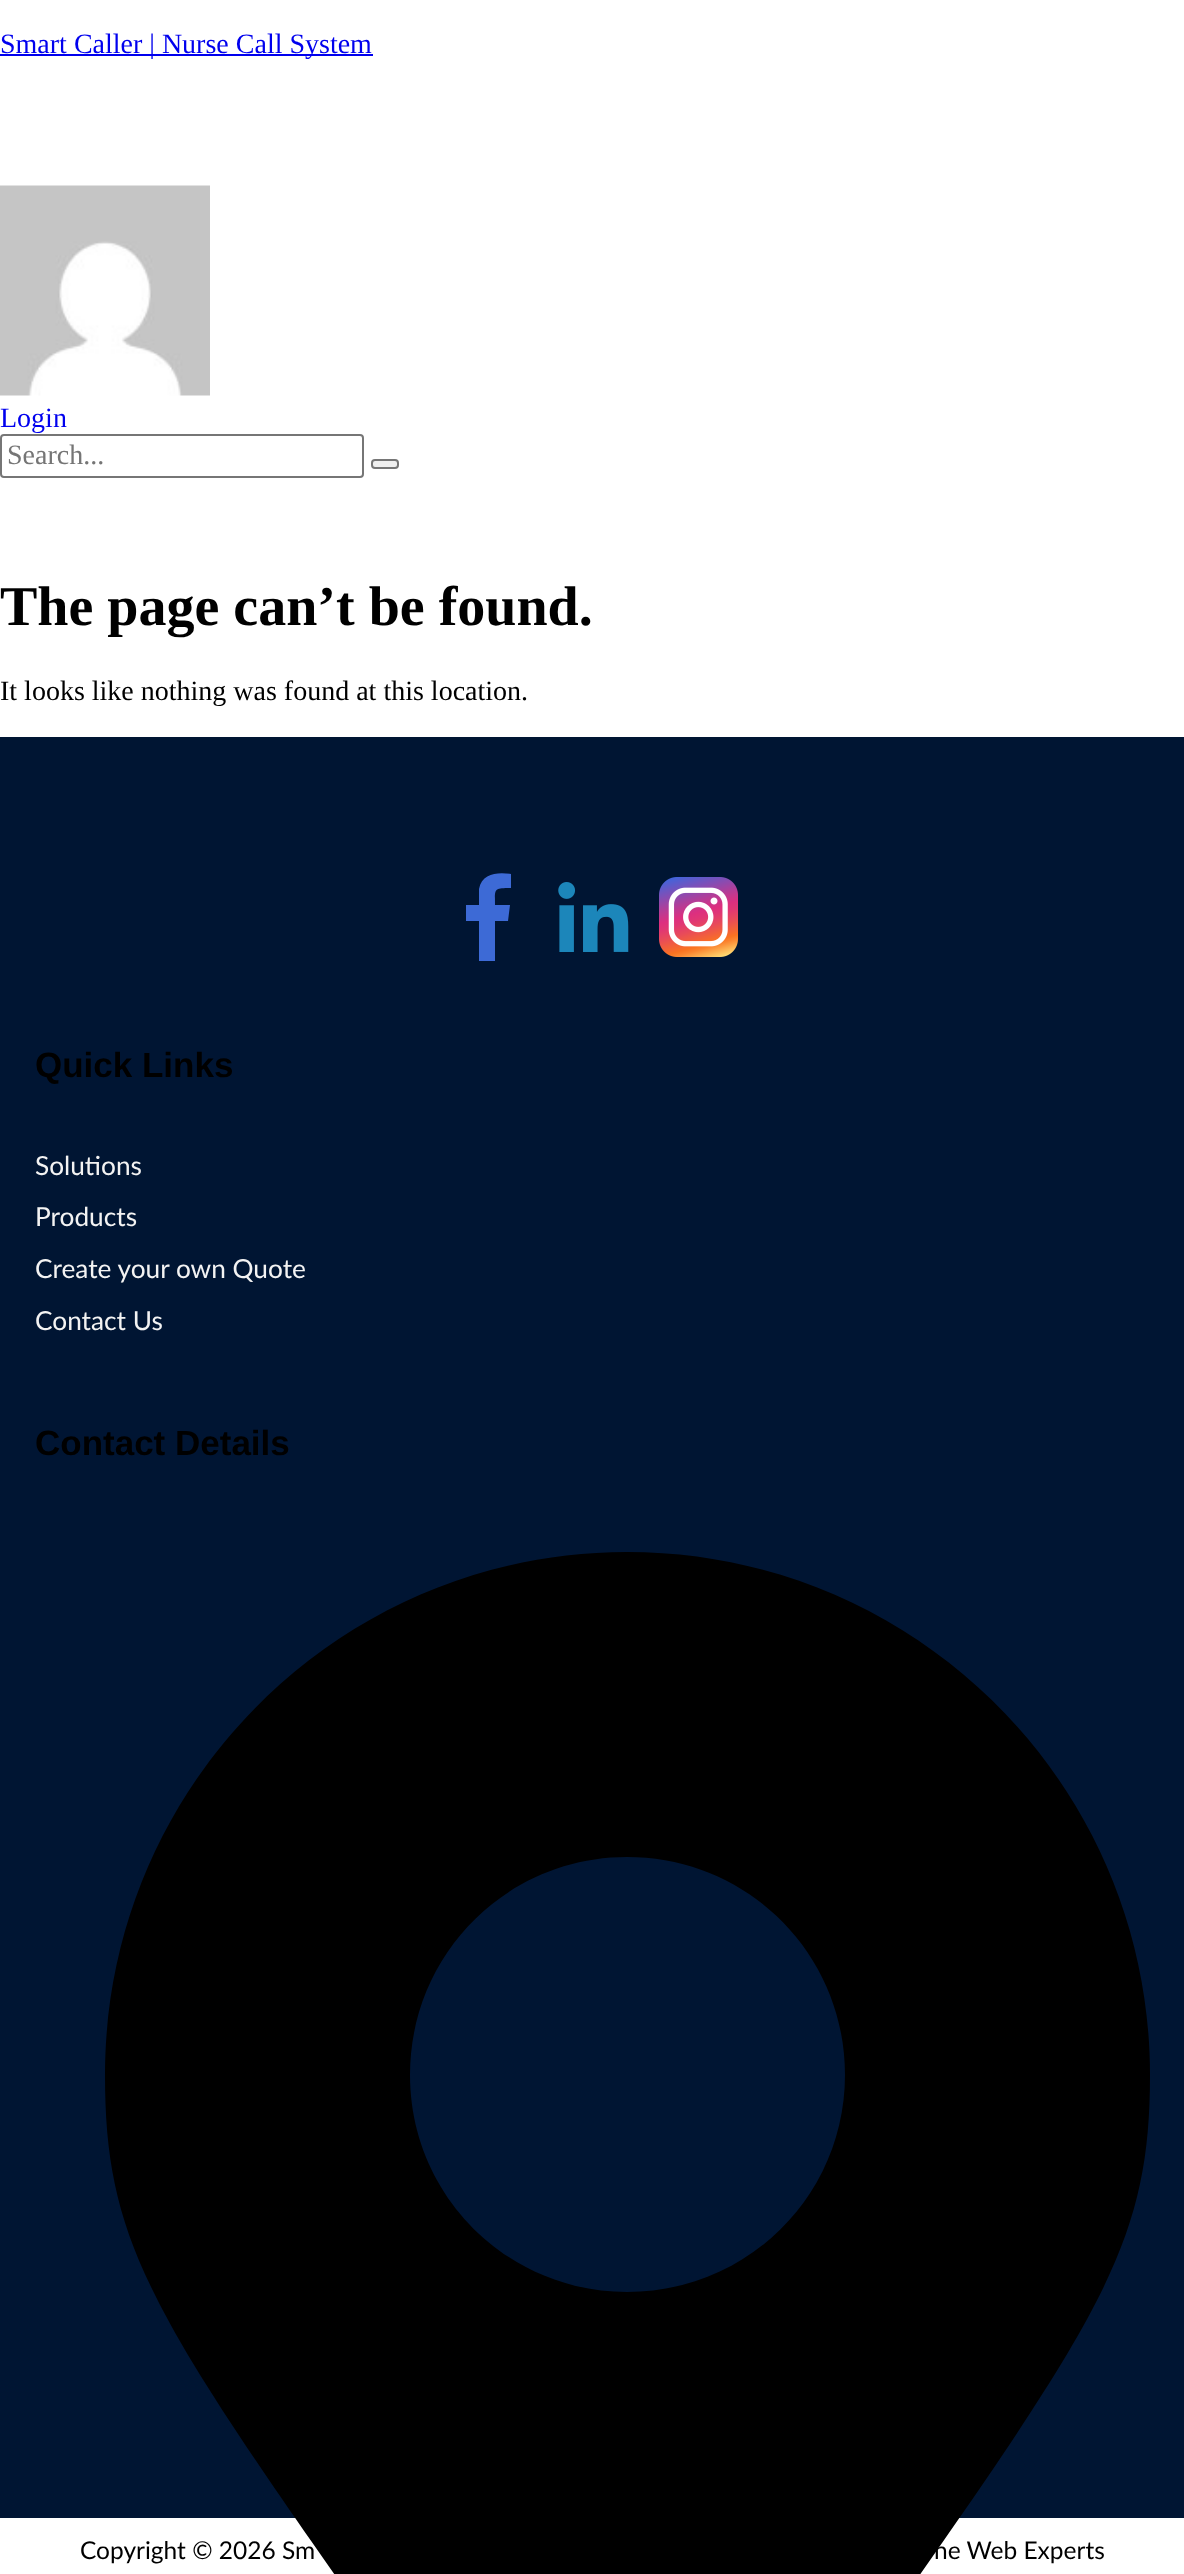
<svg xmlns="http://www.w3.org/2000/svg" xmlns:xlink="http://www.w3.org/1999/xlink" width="1184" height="2574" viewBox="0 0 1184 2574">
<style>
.cls-1{font:28px Liberation Serif;fill:#0000ee}
.cls-2{font:28px Liberation Serif;fill:#757575}
.cls-3{font:bold 56px Liberation Serif;fill:#000000}
.cls-4{font:28px Liberation Serif;fill:#000000}
.cls-5{font:bold 35px Liberation Sans;fill:#000000}
.cls-6{font:26.25px Lato;fill:#f3f3f3}
.cls-7{font:24.5px Lato;fill:#000000}
</style>
<rect width="100%" height="100%" fill="#ffffff"/>
<rect fill="#0000ee" x="0" y="54" width="373" height="2"/>
<image xlink:href="image0.png" x="0" y="185" width="210" height="211"/>
<rect fill="none" stroke="#767676" stroke-width="2" x="1" y="435" width="362" height="42" rx="3"/>
<rect fill="#efefef" stroke="#767676" stroke-width="2" x="372" y="460" width="26" height="8" rx="3"/>
<rect fill="#001533" x="0" y="737" width="1184" height="1781"/>
<path fill="#3d6ad6" d="M495 961V921H508L510 905H495C495 889 493 888 511 888V874C498 872 482 873 479 889V905H466V921H479V961Z"/>
<image xlink:href="image1.png" x="558" y="882" width="71" height="70"/>
<image xlink:href="image2.png" x="659" y="877" width="79" height="80"/>
<path fill="#000000" d="M574 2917C178 2344 105 2285 105 2075C105 1786 339 1552 627 1552C916 1552 1150 1786 1150 2075C1150 2285 1076 2344 681 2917C655 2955 600 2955 574 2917ZM627 2292C748 2292 845 2195 845 2075C845 1954 748 1857 627 1857C507 1857 410 1954 410 2075C410 2195 507 2292 627 2292Z"/>
<text class="cls-1" x="0" y="53">Smart Caller | Nurse Call System</text>
<text class="cls-1" x="0" y="427">Login</text>
<text class="cls-2" x="7" y="464">Search...</text>
<text class="cls-3" x="0" y="625">The page can’t be found.</text>
<text class="cls-4" x="0" y="700">It looks like nothing was found at this location.</text>
<text class="cls-5" x="35" y="1077">Quick Links</text>
<text class="cls-6"><tspan x="35" y="1175">Solutions</tspan><tspan x="35" y="1226">Products</tspan><tspan x="35" y="1278">Create your own Quote</tspan><tspan x="35" y="1330">Contact Us</tspan></text>
<text class="cls-5" x="35" y="1455">Contact Details</text>
<text class="cls-7" x="80" y="2559">Copyright © 2026 Sm</text>
<text class="cls-7" x="934" y="2559">ne Web Experts</text>
</svg>
